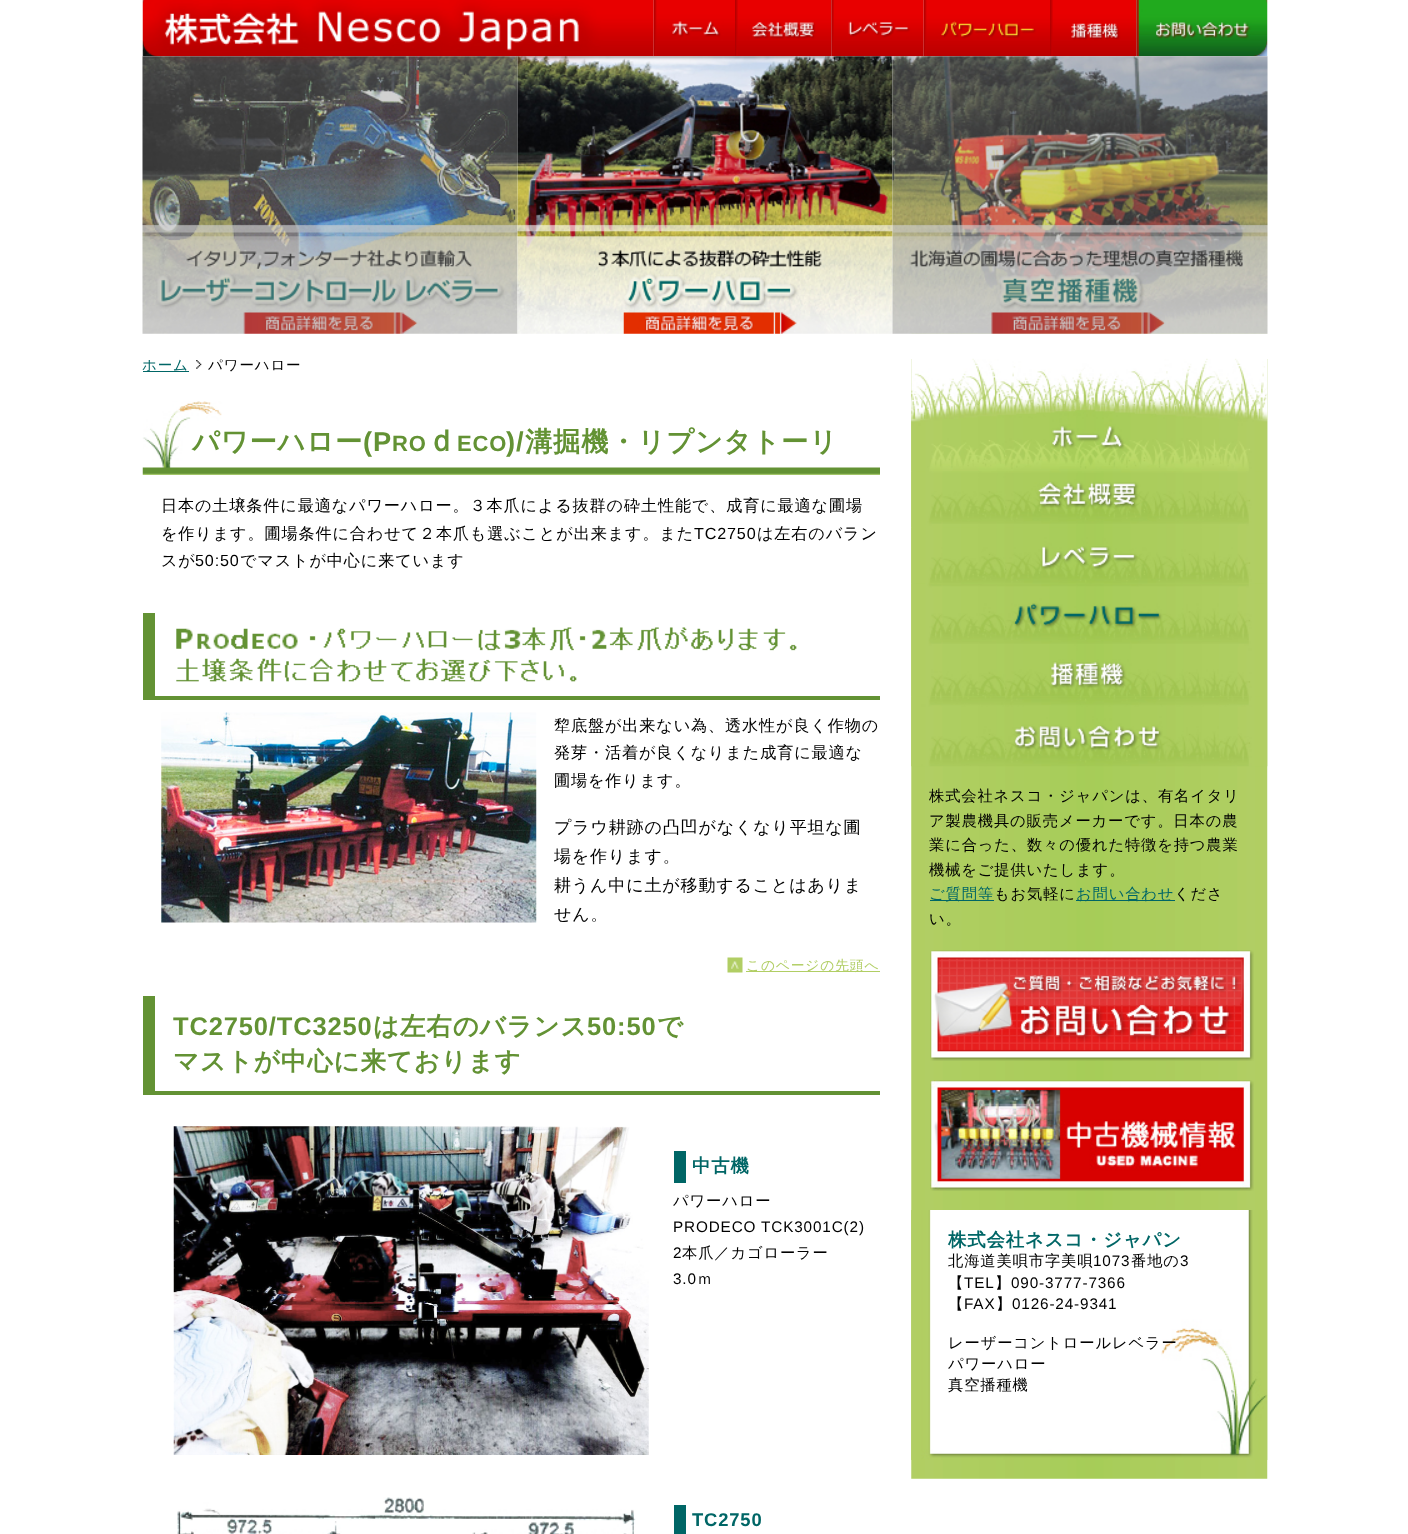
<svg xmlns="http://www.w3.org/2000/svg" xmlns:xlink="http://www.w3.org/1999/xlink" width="1408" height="1534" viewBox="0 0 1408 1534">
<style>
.cls-1{font:500 14.5px WenQuanYi Zen Hei;letter-spacing:0.85px;fill:#006666}
.cls-2{font:500 14.5px WenQuanYi Zen Hei;letter-spacing:0.85px;fill:#000000}
.cls-3{font:bold 27.25px WenQuanYi Zen Hei;letter-spacing:0.85px;fill:#639234}
.cls-4{font:bold 27.25px Liberation Sans;letter-spacing:0.85px;fill:#639234}
.cls-5{font:bold 22px Liberation Sans;letter-spacing:0.85px;fill:#639234}
.cls-6{font:bold 30px WenQuanYi Zen Hei;letter-spacing:0.85px;fill:#639234}
.cls-7{font:500 16.15px WenQuanYi Zen Hei;letter-spacing:0.85px;fill:#000000}
.cls-8{font:16.15px Liberation Sans;letter-spacing:0.85px;fill:#000000}
.cls-9{font:500 17px WenQuanYi Zen Hei;letter-spacing:0.85px;fill:#000000}
.cls-10{font:500 13.75px WenQuanYi Zen Hei;letter-spacing:0.85px;fill:#b1ce64}
.cls-11{font:bold 25.5px Liberation Sans;letter-spacing:0.85px;fill:#639234}
.cls-12{font:bold 25.5px WenQuanYi Zen Hei;letter-spacing:0.85px;fill:#639234}
.cls-13{font:bold 18.4px WenQuanYi Zen Hei;letter-spacing:0.85px;fill:#006666}
.cls-14{font:500 15.3px WenQuanYi Zen Hei;letter-spacing:0.85px;fill:#000000}
.cls-15{font:15.3px Liberation Sans;letter-spacing:0.85px;fill:#000000}
.cls-16{font:bold 18.4px Liberation Sans;letter-spacing:0.85px;fill:#006666}
.cls-17{font:500 15.3px WenQuanYi Zen Hei;letter-spacing:0.85px;fill:#006666}
</style>
<rect width="100%" height="100%" fill="#ffffff"/>
<image xlink:href="image7.png" x="142" y="56" width="376" height="278"/>
<image xlink:href="image8.png" x="517" y="56" width="376" height="278"/>
<image xlink:href="image0.png" x="142" y="0" width="512" height="57"/>
<image xlink:href="image1.png" x="653" y="0" width="82" height="57"/>
<image xlink:href="image2.png" x="735" y="0" width="97" height="57"/>
<image xlink:href="image9.png" x="892" y="56" width="376" height="278"/>
<image xlink:href="image3.png" x="831" y="0" width="93" height="57"/>
<image xlink:href="image4.png" x="923" y="0" width="127" height="57"/>
<image xlink:href="image5.png" x="1050" y="0" width="87" height="57"/>
<image xlink:href="image6.png" x="1136" y="0" width="132" height="57"/>
<rect fill="#006666" x="143" y="371" width="46" height="1"/>
<image xlink:href="image10.png" x="196" y="360" width="6" height="9"/>
<image xlink:href="image11.png" x="142" y="401" width="738" height="74"/>
<rect fill="#639234" x="155" y="696" width="725" height="4"/>
<rect fill="#639234" x="143" y="613" width="12" height="87"/>
<image xlink:href="image12.png" x="176" y="627" width="621" height="55"/>
<image xlink:href="image13.png" x="161" y="712" width="376" height="211"/>
<image xlink:href="image14.png" x="727" y="957" width="16" height="16"/>
<rect fill="#b1ce64" x="746" y="971" width="134" height="1"/>
<rect fill="#639234" x="155" y="1091" width="725" height="4"/>
<rect fill="#639234" x="143" y="996" width="12" height="99"/>
<image xlink:href="image15.png" x="173" y="1126" width="476" height="329"/>
<rect fill="#006666" x="674" y="1151" width="12" height="32"/>
<image xlink:href="image16.png" x="177" y="1497" width="459" height="37"/>
<rect fill="#006666" x="674" y="1505" width="12" height="29"/>
<image xlink:href="image17.png" x="911" y="333" width="357" height="1146"/>
<rect fill="#ffffff" x="911" y="334" width="357" height="25"/>
<image xlink:href="image18.png" x="911" y="358" width="357" height="114"/>
<image xlink:href="image19.png" x="911" y="471" width="357" height="57"/>
<image xlink:href="image20.png" x="911" y="527" width="357" height="57"/>
<image xlink:href="image21.png" x="911" y="583" width="357" height="57"/>
<image xlink:href="image22.png" x="911" y="640" width="357" height="57"/>
<image xlink:href="image23.png" x="911" y="696" width="357" height="71"/>
<rect fill="#006666" x="930" y="900" width="64" height="1"/>
<rect fill="#006666" x="1076" y="900" width="99" height="1"/>
<image xlink:href="image24.png" x="930" y="950" width="324" height="111"/>
<image xlink:href="image25.png" x="930" y="1080" width="324" height="111"/>
<image xlink:href="image26.png" x="911" y="1210" width="357" height="250"/>
<text class="cls-1" x="142" y="370">ホーム</text>
<text class="cls-2" x="208" y="370">パワーハロー</text>
<text class="cls-3" x="192" y="451">パワーハロー</text>
<text class="cls-4" x="363" y="451">(P</text>
<text class="cls-5" x="392" y="451">RO</text>
<text class="cls-6" x="426" y="451">ｄ</text>
<text class="cls-5" x="457" y="451">ECO</text>
<text class="cls-4" x="506" y="451">)/</text>
<text class="cls-3" x="525" y="451">溝掘機・リプンタトーリ</text>
<text class="cls-7"><tspan x="161" y="511">日本の土壌条件に最適なパワーハロー。３本爪による抜群の砕土性能で、成育に最適な圃場</tspan><tspan x="161" y="539">を作ります。圃場条件に合わせて２本爪も選ぶことが出来ます。また</tspan></text>
<text class="cls-8" x="694" y="539">TC2750</text>
<text class="cls-7" x="757" y="539">は左右のバラン</text>
<text class="cls-7" x="161" y="566">スが</text>
<text class="cls-8" x="195" y="566">50:50</text>
<text class="cls-7" x="240" y="566">でマストが中心に来ています</text>
<text class="cls-7"><tspan x="554" y="731">犂底盤が出来ない為、透水性が良く作物の</tspan><tspan x="554" y="758">発芽・活着が良くなりまた成育に最適な</tspan><tspan x="554" y="786">圃場を作ります。</tspan></text>
<text class="cls-9"><tspan x="554" y="833">プラウ耕跡の凸凹がなくなり平坦な圃</tspan><tspan x="554" y="862">場を作ります。</tspan><tspan x="554" y="891">耕うん中に土が移動することはありま</tspan><tspan x="554" y="920">せん。</tspan></text>
<text class="cls-10" x="746" y="970">このページの先頭へ</text>
<text class="cls-11" x="173" y="1035">TC2750/TC3250</text>
<text class="cls-12" x="373" y="1035">は左右のバランス</text>
<text class="cls-11" x="587" y="1035">50:50</text>
<text class="cls-12" x="657" y="1035">で</text>
<text class="cls-12" x="173" y="1070">マストが中心に来ております</text>
<text class="cls-13" x="692" y="1172">中古機</text>
<text class="cls-14" x="673" y="1206">パワーハロー</text>
<text class="cls-15"><tspan x="673" y="1232">PRODECO TCK3001C(2)</tspan><tspan x="673" y="1258">2</tspan></text>
<text class="cls-14" x="682" y="1258">本爪／カゴローラー</text>
<text class="cls-15" x="673" y="1284">3.0</text>
<text class="cls-14" x="697" y="1284">ｍ</text>
<text class="cls-16" x="692" y="1526">TC2750</text>
<text class="cls-14"><tspan x="929" y="801">株式会社ネスコ・ジャパンは、有名イタリ</tspan><tspan x="929" y="826">ア製農機具の販売メーカーです。日本の農</tspan><tspan x="929" y="850">業に合った、数々の優れた特徴を持つ農業</tspan><tspan x="929" y="875">機械をご提供いたします。</tspan></text>
<text class="cls-17" x="929" y="899">ご質問等</text>
<text class="cls-14" x="994" y="899">もお気軽に</text>
<text class="cls-17" x="1076" y="899">お問い合わせ</text>
<text class="cls-14" x="1174" y="899">くださ</text>
<text class="cls-14" x="929" y="924">い。</text>
<text class="cls-13" x="948" y="1246">株式会社ネスコ・ジャパン</text>
<text class="cls-14" x="948" y="1266">北海道美唄市字美唄</text>
<text class="cls-15" x="1093" y="1266">1073</text>
<text class="cls-14" x="1131" y="1266">番地の</text>
<text class="cls-15" x="1180" y="1266">3</text>
<text class="cls-14" x="948" y="1288">【</text>
<text class="cls-15" x="964" y="1288">TEL</text>
<text class="cls-14" x="995" y="1288">】</text>
<text class="cls-15" x="1011" y="1288">090-3777-7366</text>
<text class="cls-14" x="948" y="1309">【</text>
<text class="cls-15" x="964" y="1309">FAX</text>
<text class="cls-14" x="996" y="1309">】</text>
<text class="cls-15" x="1012" y="1309">0126-24-9341</text>
<text class="cls-14"><tspan x="948" y="1348">レーザーコントロールレベラー</tspan><tspan x="948" y="1369">パワーハロー</tspan><tspan x="948" y="1390">真空播種機</tspan></text>
</svg>
